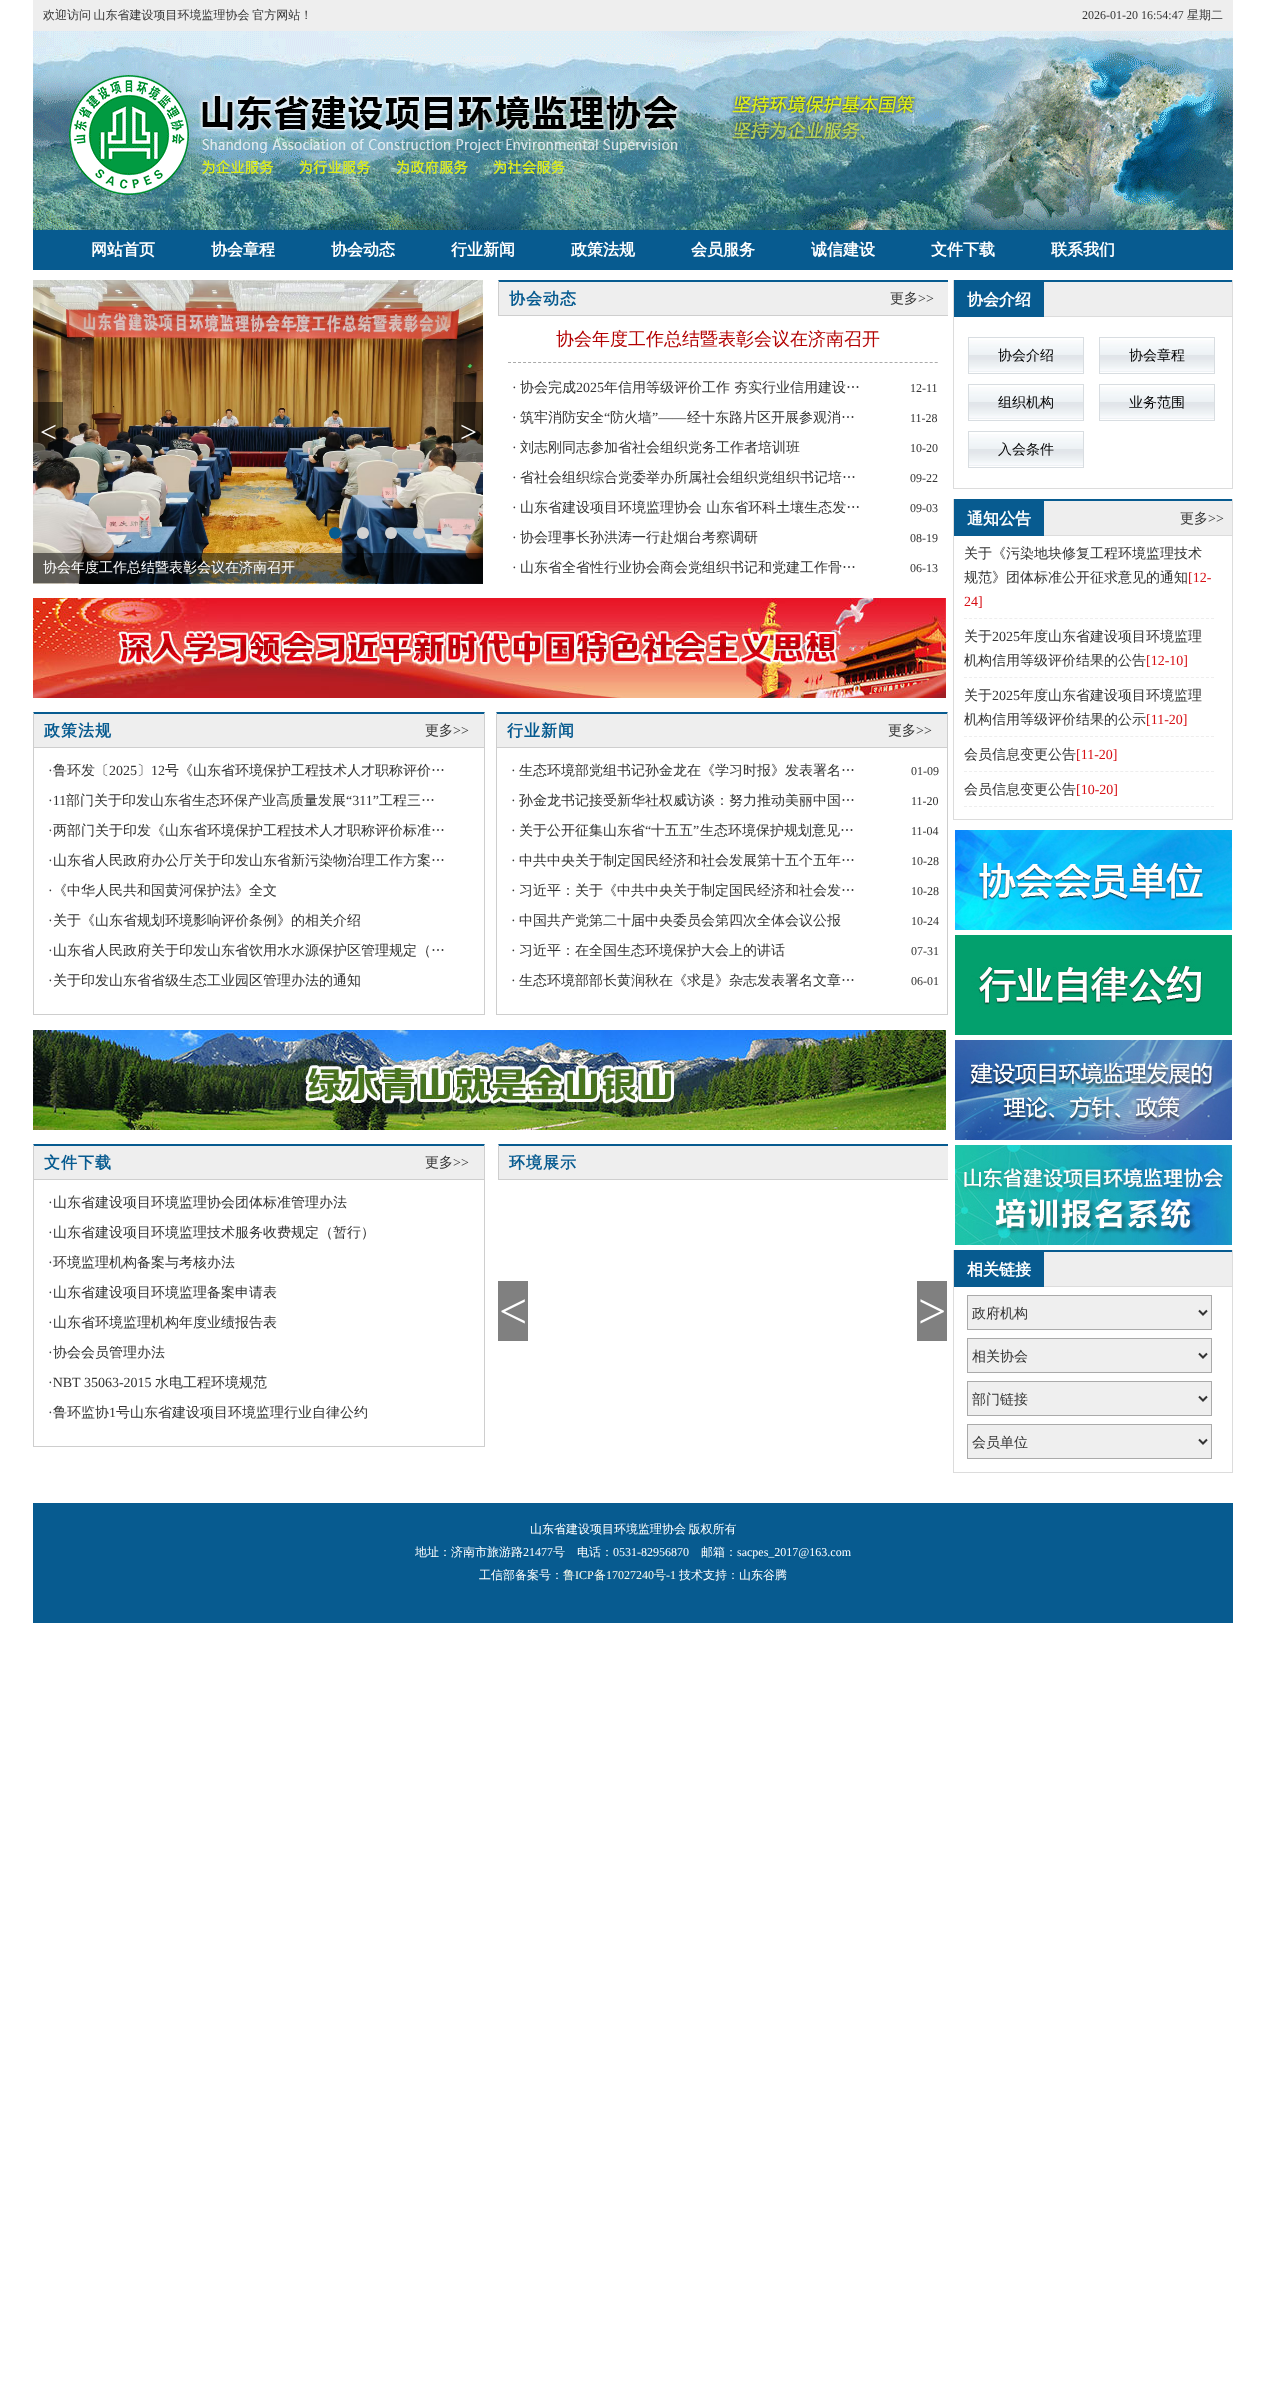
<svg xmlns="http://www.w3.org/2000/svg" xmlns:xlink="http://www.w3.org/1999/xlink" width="1266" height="2403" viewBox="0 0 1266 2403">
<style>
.cls-1{font:500 12px WenQuanYi Zen Hei;fill:#333333}
.cls-2{font:12px Liberation Serif;fill:#333333}
.cls-3{font:bold 16px WenQuanYi Zen Hei;fill:#ffffff}
.cls-4{font:30px Liberation Serif;fill:#ffffff}
.cls-5{font:500 14px WenQuanYi Zen Hei;fill:#ffffff}
.cls-6{font:bold 16px WenQuanYi Zen Hei;letter-spacing:1px;fill:#075b90}
.cls-7{font:500 14px WenQuanYi Zen Hei;fill:#333333}
.cls-8{font:14px Liberation Serif;fill:#333333}
.cls-9{font:500 18px WenQuanYi Zen Hei;fill:#b30001}
.cls-10{font:50px Liberation Serif;fill:#ffffff}
.cls-11{font:500 14px WenQuanYi Zen Hei;fill:#000000}
.cls-12{font:14px Liberation Serif;fill:#d70e14}
.cls-13{font:500 12px WenQuanYi Zen Hei;fill:#ffffff}
.cls-14{font:12px Liberation Serif;fill:#ffffff}
.cls-15{font:500 12px WenQuanYi Zen Hei;fill:#ffffee}
.cls-16{font:12px Liberation Serif;fill:#ffffee}
</style>
<defs>
<clipPath id="clip1"><rect x="498" y="280" width="450" height="304"/></clipPath>
<clipPath id="clip2"><rect x="33" y="280" width="915" height="1168"/></clipPath>
</defs>
<rect width="100%" height="100%" fill="#ffffff"/>
<rect fill="#eeeeee" x="33" y="0" width="1200" height="30"/>
<image xlink:href="image0.png" x="33" y="30" width="1200" height="200"/>
<rect fill="#075b90" x="33" y="230" width="1200" height="40"/>
<image xlink:href="image1.png" x="33" y="280" width="450" height="304"/>
<rect fill="#000000" fill-opacity="0.5" x="33" y="402" width="30" height="60"/>
<rect fill="#000000" fill-opacity="0.5" x="453" y="402" width="30" height="60"/>
<circle fill="#075b90" cx="335" cy="533" r="6"/>
<circle fill="#d2d2d2" cx="363" cy="533" r="6"/>
<circle fill="#d2d2d2" cx="391" cy="533" r="6"/>
<circle fill="#d2d2d2" cx="419" cy="533" r="6"/>
<circle fill="#d2d2d2" cx="447" cy="533" r="6"/>
<rect fill="#000000" fill-opacity="0.5" x="33" y="553" width="450" height="30"/>
<rect fill="#eeeeee" x="499" y="282" width="449" height="33"/>
<g clip-path="url(#clip1)">
<path fill="#075b90" d="M498 280H950L949 282H499Z"/>
</g>
<rect fill="#cecece" x="498" y="315" width="450" height="1"/>
<path fill="#cecece" d="M498 316V280L499 282V315Z"/>
<path fill="none" stroke="#aaaaaa" stroke-dasharray="3 2.02" d="M508 362.5H938"/>
<image xlink:href="image2.png" x="33" y="598" width="913" height="100"/>
<rect fill="#eeeeee" x="34" y="714" width="450" height="33"/>
<path fill="#075b90" d="M33 712H485L484 714H34Z"/>
<path fill="#cecece" d="M485 712V748L484 747V714Z"/>
<rect fill="#cecece" x="33" y="747" width="452" height="1"/>
<path fill="#cecece" d="M33 748V712L34 714V747Z"/>
<rect fill="#cecece" x="484" y="748" width="1" height="267"/>
<rect fill="#cecece" x="33" y="1014" width="452" height="1"/>
<rect fill="#cecece" x="33" y="748" width="1" height="267"/>
<rect fill="#eeeeee" x="497" y="714" width="450" height="33"/>
<path fill="#075b90" d="M496 712H948L947 714H497Z"/>
<path fill="#cecece" d="M948 712V748L947 747V714Z"/>
<rect fill="#cecece" x="496" y="747" width="452" height="1"/>
<path fill="#cecece" d="M496 748V712L497 714V747Z"/>
<rect fill="#cecece" x="947" y="748" width="1" height="267"/>
<rect fill="#cecece" x="496" y="1014" width="452" height="1"/>
<rect fill="#cecece" x="496" y="748" width="1" height="267"/>
<image xlink:href="image3.png" x="33" y="1030" width="913" height="100"/>
<rect fill="#eeeeee" x="34" y="1146" width="450" height="33"/>
<path fill="#075b90" d="M33 1144H485L484 1146H34Z"/>
<path fill="#cecece" d="M485 1144V1180L484 1179V1146Z"/>
<rect fill="#cecece" x="33" y="1179" width="452" height="1"/>
<path fill="#cecece" d="M33 1180V1144L34 1146V1179Z"/>
<rect fill="#cecece" x="484" y="1180" width="1" height="267"/>
<rect fill="#cecece" x="33" y="1446" width="452" height="1"/>
<rect fill="#cecece" x="33" y="1180" width="1" height="267"/>
<rect fill="#eeeeee" x="499" y="1146" width="449" height="33"/>
<g clip-path="url(#clip2)">
<path fill="#075b90" d="M498 1144H950L949 1146H499Z"/>
</g>
<rect fill="#cecece" x="498" y="1179" width="450" height="1"/>
<path fill="#cecece" d="M498 1180V1144L499 1146V1179Z"/>
<rect fill="#808080" x="498" y="1281" width="30" height="60"/>
<rect fill="#808080" x="917" y="1281" width="30" height="60"/>
<rect fill="#dcdcdc" x="1232" y="280" width="1" height="209"/>
<rect fill="#dcdcdc" x="953" y="488" width="280" height="1"/>
<rect fill="#dcdcdc" x="953" y="280" width="1" height="209"/>
<rect fill="#eeeeee" x="1044" y="282" width="188" height="34"/>
<rect fill="#075b90" x="954" y="280" width="278" height="2"/>
<rect fill="#dcdcdc" x="1044" y="316" width="188" height="1"/>
<rect fill="#075b90" x="954" y="282" width="90" height="35"/>
<image xlink:href="image4.png" x="969" y="340" width="114" height="32"/>
<rect fill="none" stroke="#d8dde1" x="968.5" y="337.5" width="115" height="36"/>
<image xlink:href="image4.png" x="1100" y="340" width="114" height="32"/>
<rect fill="none" stroke="#d8dde1" x="1099.5" y="337.5" width="115" height="36"/>
<image xlink:href="image4.png" x="969" y="387" width="114" height="32"/>
<rect fill="none" stroke="#d8dde1" x="968.5" y="384.5" width="115" height="36"/>
<image xlink:href="image4.png" x="1100" y="387" width="114" height="32"/>
<rect fill="none" stroke="#d8dde1" x="1099.5" y="384.5" width="115" height="36"/>
<image xlink:href="image4.png" x="969" y="434" width="114" height="32"/>
<rect fill="none" stroke="#d8dde1" x="968.5" y="431.5" width="115" height="36"/>
<rect fill="#dcdcdc" x="1232" y="499" width="1" height="321"/>
<rect fill="#dcdcdc" x="953" y="819" width="280" height="1"/>
<rect fill="#dcdcdc" x="953" y="499" width="1" height="321"/>
<rect fill="#eeeeee" x="1044" y="501" width="188" height="34"/>
<rect fill="#075b90" x="954" y="499" width="278" height="2"/>
<rect fill="#dcdcdc" x="1044" y="535" width="188" height="1"/>
<rect fill="#075b90" x="954" y="501" width="90" height="35"/>
<path fill="none" stroke="#eeeeee" stroke-dasharray="3 2.04" d="M964 618.5H1214"/>
<path fill="none" stroke="#eeeeee" stroke-dasharray="3 2.04" d="M964 677.5H1214"/>
<path fill="none" stroke="#eeeeee" stroke-dasharray="3 2.04" d="M964 736.5H1214"/>
<path fill="none" stroke="#eeeeee" stroke-dasharray="3 2.04" d="M964 771.5H1214"/>
<path fill="none" stroke="#eeeeee" stroke-dasharray="3 2.04" d="M964 806.5H1214"/>
<image xlink:href="image5.png" x="955" y="830" width="277" height="100"/>
<image xlink:href="image6.png" x="955" y="935" width="277" height="100"/>
<image xlink:href="image7.png" x="955" y="1040" width="277" height="100"/>
<image xlink:href="image8.png" x="955" y="1145" width="277" height="100"/>
<rect fill="#dcdcdc" x="1232" y="1250" width="1" height="223"/>
<rect fill="#dcdcdc" x="953" y="1472" width="280" height="1"/>
<rect fill="#dcdcdc" x="953" y="1250" width="1" height="223"/>
<rect fill="#eeeeee" x="1044" y="1252" width="188" height="34"/>
<rect fill="#075b90" x="954" y="1250" width="278" height="2"/>
<rect fill="#dcdcdc" x="1044" y="1286" width="188" height="1"/>
<rect fill="#075b90" x="954" y="1252" width="90" height="35"/>
<rect fill="#efefef" stroke="#aaaaaa" x="967.5" y="1295.5" width="244" height="34"/>
<path fill="none" stroke="#333333" stroke-width="2" d="M1199 1310.5L1203 1314.5L1207 1310.5"/>
<rect fill="#efefef" stroke="#aaaaaa" x="967.5" y="1338.5" width="244" height="34"/>
<path fill="none" stroke="#333333" stroke-width="2" d="M1199 1353.5L1203 1357.5L1207 1353.5"/>
<rect fill="#efefef" stroke="#aaaaaa" x="967.5" y="1381.5" width="244" height="34"/>
<path fill="none" stroke="#333333" stroke-width="2" d="M1199 1396.5L1203 1400.5L1207 1396.5"/>
<rect fill="#efefef" stroke="#aaaaaa" x="967.5" y="1424.5" width="244" height="34"/>
<path fill="none" stroke="#333333" stroke-width="2" d="M1199 1439.5L1203 1443.5L1207 1439.5"/>
<rect fill="#075b90" x="33" y="1503" width="1200" height="120"/>
<text class="cls-1" x="43" y="19" word-spacing="-1">欢迎访问 山东省建设项目环境监理协会 官方网站！</text>
<text class="cls-2" x="1082" y="19">2026-01-20 16:54:47</text>
<text class="cls-1" x="1187" y="19">星期二</text>
<text class="cls-3" x="91" y="255">网站首页</text>
<text class="cls-3" x="211" y="255">协会章程</text>
<text class="cls-3" x="331" y="255">协会动态</text>
<text class="cls-3" x="451" y="255">行业新闻</text>
<text class="cls-3" x="571" y="255">政策法规</text>
<text class="cls-3" x="691" y="255">会员服务</text>
<text class="cls-3" x="811" y="255">诚信建设</text>
<text class="cls-3" x="931" y="255">文件下载</text>
<text class="cls-3" x="1051" y="255">联系我们</text>
<text class="cls-4" x="40" y="442">&lt;</text>
<text class="cls-4" x="460" y="442">&gt;</text>
<text class="cls-5" x="43" y="572">协会年度工作总结暨表彰会议在济南召开</text>
<text class="cls-6" x="509" y="304">协会动态</text>
<text class="cls-7" x="890" y="303">更多</text>
<text class="cls-8" x="918" y="303">&gt;&gt;</text>
<text class="cls-9" x="556" y="345">协会年度工作总结暨表彰会议在济南召开</text>
<text class="cls-8" x="512" y="392">·</text>
<text class="cls-7" x="520" y="392">协会完成</text>
<text class="cls-8" x="576" y="392">2025</text>
<text class="cls-7" x="604" y="392">年信用等级评价工作</text>
<text class="cls-7" x="734" y="392">夯实行业信用建设…</text>
<text class="cls-2" x="910" y="392">12-11</text>
<text class="cls-8" x="512" y="422">·</text>
<text class="cls-7" x="520" y="422">筑牢消防安全</text>
<text class="cls-8" x="604" y="422">“</text>
<text class="cls-7" x="610" y="422">防火墙</text>
<text class="cls-8" x="652" y="422">”——</text>
<text class="cls-7" x="687" y="422">经十东路片区开展参观消…</text>
<text class="cls-2" x="910" y="422">11-28</text>
<text class="cls-8" x="512" y="452">·</text>
<text class="cls-7" x="520" y="452">刘志刚同志参加省社会组织党务工作者培训班</text>
<text class="cls-2" x="910" y="452">10-20</text>
<text class="cls-8" x="512" y="482">·</text>
<text class="cls-7" x="520" y="482">省社会组织综合党委举办所属社会组织党组织书记培…</text>
<text class="cls-2" x="910" y="482">09-22</text>
<text class="cls-8" x="512" y="512">·</text>
<text class="cls-7" x="520" y="512">山东省建设项目环境监理协会 山东省环科土壤生态发…</text>
<text class="cls-2" x="910" y="512">09-03</text>
<text class="cls-8" x="512" y="542">·</text>
<text class="cls-7" x="520" y="542">协会理事长孙洪涛一行赴烟台考察调研</text>
<text class="cls-2" x="910" y="542">08-19</text>
<text class="cls-8" x="512" y="572">·</text>
<text class="cls-7" x="520" y="572">山东省全省性行业协会商会党组织书记和党建工作骨…</text>
<text class="cls-2" x="910" y="572">06-13</text>
<text class="cls-6" x="44" y="736">政策法规</text>
<text class="cls-7" x="425" y="735">更多</text>
<text class="cls-8" x="453" y="735">&gt;&gt;</text>
<text class="cls-8" x="48" y="775">·</text>
<text class="cls-7" x="53" y="775">鲁环发〔</text>
<text class="cls-8" x="109" y="775">2025</text>
<text class="cls-7" x="137" y="775">〕</text>
<text class="cls-8" x="151" y="775">12</text>
<text class="cls-7" x="165" y="775">号《山东省环境保护工程技术人才职称评价…</text>
<text class="cls-8" x="48" y="805">·11</text>
<text class="cls-7" x="66" y="805">部门关于印发山东省生态环保产业高质量发展</text>
<text class="cls-8" x="346" y="805">“311”</text>
<text class="cls-7" x="379" y="805">工程三…</text>
<text class="cls-8" x="48" y="835">·</text>
<text class="cls-7" x="53" y="835">两部门关于印发《山东省环境保护工程技术人才职称评价标准…</text>
<text class="cls-8" x="48" y="865">·</text>
<text class="cls-7" x="53" y="865">山东省人民政府办公厅关于印发山东省新污染物治理工作方案…</text>
<text class="cls-8" x="48" y="895">·</text>
<text class="cls-7" x="53" y="895">《中华人民共和国黄河保护法》全文</text>
<text class="cls-8" x="48" y="925">·</text>
<text class="cls-7" x="53" y="925">关于《山东省规划环境影响评价条例》的相关介绍</text>
<text class="cls-8" x="48" y="955">·</text>
<text class="cls-7" x="53" y="955">山东省人民政府关于印发山东省饮用水水源保护区管理规定（…</text>
<text class="cls-8" x="48" y="985">·</text>
<text class="cls-7" x="53" y="985">关于印发山东省省级生态工业园区管理办法的通知</text>
<text class="cls-6" x="507" y="736">行业新闻</text>
<text class="cls-7" x="888" y="735">更多</text>
<text class="cls-8" x="916" y="735">&gt;&gt;</text>
<text class="cls-8" x="511" y="775">·</text>
<text class="cls-7" x="519" y="775">生态环境部党组书记孙金龙在《学习时报》发表署名…</text>
<text class="cls-2" x="911" y="775">01-09</text>
<text class="cls-8" x="511" y="805">·</text>
<text class="cls-7" x="519" y="805">孙金龙书记接受新华社权威访谈：努力推动美丽中国…</text>
<text class="cls-2" x="911" y="805">11-20</text>
<text class="cls-7" x="519" y="835">关于公开征集山东省</text>
<text class="cls-8" x="645" y="835">“</text>
<text class="cls-7" x="651" y="835">十五五</text>
<text class="cls-8" x="693" y="835">”</text>
<text class="cls-7" x="700" y="835">生态环境保护规划意见…</text>
<text class="cls-8" x="511" y="835">·</text>
<text class="cls-2" x="911" y="835">11-04</text>
<text class="cls-8" x="511" y="865">·</text>
<text class="cls-7" x="519" y="865">中共中央关于制定国民经济和社会发展第十五个五年…</text>
<text class="cls-2" x="911" y="865">10-28</text>
<text class="cls-8" x="511" y="895">·</text>
<text class="cls-7" x="519" y="895">习近平：关于《中共中央关于制定国民经济和社会发…</text>
<text class="cls-2" x="911" y="895">10-28</text>
<text class="cls-8" x="511" y="925">·</text>
<text class="cls-7" x="519" y="925">中国共产党第二十届中央委员会第四次全体会议公报</text>
<text class="cls-2" x="911" y="925">10-24</text>
<text class="cls-8" x="511" y="955">·</text>
<text class="cls-7" x="519" y="955">习近平：在全国生态环境保护大会上的讲话</text>
<text class="cls-2" x="911" y="955">07-31</text>
<text class="cls-8" x="511" y="985">·</text>
<text class="cls-7" x="519" y="985">生态环境部部长黄润秋在《求是》杂志发表署名文章…</text>
<text class="cls-2" x="911" y="985">06-01</text>
<text class="cls-6" x="44" y="1168">文件下载</text>
<text class="cls-7" x="425" y="1167">更多</text>
<text class="cls-8" x="453" y="1167">&gt;&gt;</text>
<text class="cls-8" x="48" y="1207">·</text>
<text class="cls-7" x="53" y="1207">山东省建设项目环境监理协会团体标准管理办法</text>
<text class="cls-8" x="48" y="1237">·</text>
<text class="cls-7" x="53" y="1237">山东省建设项目环境监理技术服务收费规定（暂行）</text>
<text class="cls-8" x="48" y="1267">·</text>
<text class="cls-7" x="53" y="1267">环境监理机构备案与考核办法</text>
<text class="cls-8" x="48" y="1297">·</text>
<text class="cls-7" x="53" y="1297">山东省建设项目环境监理备案申请表</text>
<text class="cls-8" x="48" y="1327">·</text>
<text class="cls-7" x="53" y="1327">山东省环境监理机构年度业绩报告表</text>
<text class="cls-8" x="48" y="1357">·</text>
<text class="cls-7" x="53" y="1357">协会会员管理办法</text>
<text class="cls-8" x="48" y="1387">·NBT 35063-2015</text>
<text class="cls-7" x="155" y="1387">水电工程环境规范</text>
<text class="cls-8" x="48" y="1417">·</text>
<text class="cls-7" x="53" y="1417">鲁环监协</text>
<text class="cls-8" x="109" y="1417">1</text>
<text class="cls-7" x="116" y="1417">号山东省建设项目环境监理行业自律公约</text>
<text class="cls-6" x="509" y="1168">环境展示</text>
<text class="cls-10" x="499" y="1328">&lt;</text>
<text class="cls-10" x="918" y="1328">&gt;</text>
<text class="cls-3" x="967" y="305">协会介绍</text>
<text class="cls-11" x="998" y="360">协会介绍</text>
<text class="cls-11" x="1129" y="360">协会章程</text>
<text class="cls-11" x="998" y="407">组织机构</text>
<text class="cls-11" x="1129" y="407">业务范围</text>
<text class="cls-11" x="998" y="454">入会条件</text>
<text class="cls-3" x="967" y="524">通知公告</text>
<text class="cls-7" x="1180" y="523">更多</text>
<text class="cls-8" x="1208" y="523">&gt;&gt;</text>
<text class="cls-7"><tspan x="964" y="558">关于《污染地块修复工程环境监理技术</tspan><tspan x="964" y="582">规范》团体标准公开征求意见的通知</tspan></text>
<text class="cls-12" x="1188" y="582">[12-</text>
<text class="cls-12" x="964" y="606">24]</text>
<text class="cls-7" x="964" y="641">关于</text>
<text class="cls-8" x="992" y="641">2025</text>
<text class="cls-7" x="1020" y="641">年度山东省建设项目环境监理</text>
<text class="cls-7" x="964" y="665">机构信用等级评价结果的公告</text>
<text class="cls-12" x="1146" y="665">[12-10]</text>
<text class="cls-7" x="964" y="700">关于</text>
<text class="cls-8" x="992" y="700">2025</text>
<text class="cls-7" x="1020" y="700">年度山东省建设项目环境监理</text>
<text class="cls-7" x="964" y="724">机构信用等级评价结果的公示</text>
<text class="cls-12" x="1146" y="724">[11-20]</text>
<text class="cls-7" x="964" y="759">会员信息变更公告</text>
<text class="cls-12" x="1076" y="759">[11-20]</text>
<text class="cls-7" x="964" y="794">会员信息变更公告</text>
<text class="cls-12" x="1076" y="794">[10-20]</text>
<text class="cls-3" x="967" y="1275">相关链接</text>
<text class="cls-7" x="972" y="1318">政府机构</text>
<text class="cls-7" x="972" y="1361">相关协会</text>
<text class="cls-7" x="972" y="1404">部门链接</text>
<text class="cls-7" x="972" y="1447">会员单位</text>
<text class="cls-13" x="530" y="1533" word-spacing="-1">山东省建设项目环境监理协会 版权所有</text>
<text class="cls-13" x="415" y="1556">地址：济南市旅游路</text>
<text class="cls-14" x="523" y="1556">21477</text>
<text class="cls-13" x="553" y="1556">号　电话：</text>
<text class="cls-14" x="613" y="1556">0531-82956870</text>
<text class="cls-13" x="701" y="1556">邮箱：</text>
<text class="cls-14" x="737" y="1556">sacpes_2017@163.com</text>
<text class="cls-13" x="479" y="1579">工信部备案号：</text>
<text class="cls-15" x="563" y="1579">鲁</text>
<text class="cls-16" x="575" y="1579">ICP</text>
<text class="cls-15" x="594" y="1579">备</text>
<text class="cls-16" x="606" y="1579">17027240</text>
<text class="cls-15" x="654" y="1579">号</text>
<text class="cls-16" x="666" y="1579">-1</text>
<text class="cls-13" x="679" y="1579">技术支持：山东谷腾</text>
</svg>
